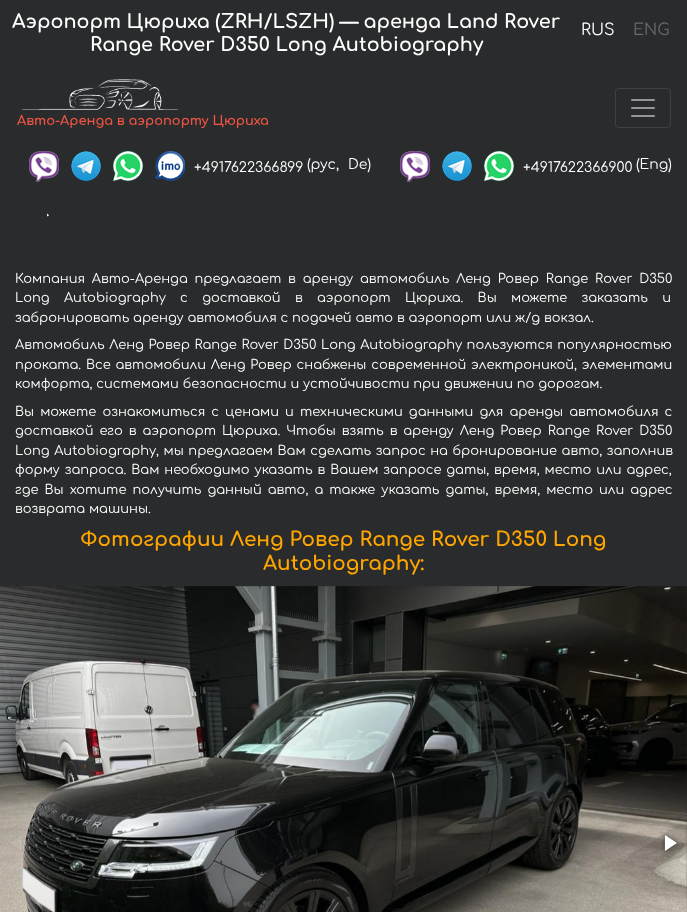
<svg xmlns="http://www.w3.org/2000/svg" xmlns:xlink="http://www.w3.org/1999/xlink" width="687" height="912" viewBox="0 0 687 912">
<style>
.cls-1{font:bold 19.2px Comfortaa;fill:#ffffff}
.cls-2{font:16px Comfortaa;fill:#ffffff}
.cls-3{font:16px Comfortaa;fill:#696b6b}
.cls-4{font:bold 13px Comfortaa;fill:#ef5445}
.cls-5{font:14px Comfortaa;fill:#ffffff}
.cls-6{font:13px Comfortaa;fill:#ffffff}
.cls-7{font:bold 20px Comfortaa;fill:#ffa500}
</style>
<rect width="100%" height="100%" fill="#292b2c"/>
<image xlink:href="image0.png" x="21" y="79" width="158" height="31"/>
<rect fill="none" stroke="#3e4041" x="615.5" y="88.5" width="55" height="39" rx="3.5"/>
<image xlink:href="image1.png" x="631" y="99" width="24" height="18"/>
<image xlink:href="image2.png" x="29" y="151" width="30" height="31"/>
<image xlink:href="image3.png" x="71" y="151" width="30" height="30"/>
<image xlink:href="image4.png" x="113" y="151" width="30" height="30"/>
<image xlink:href="image5.png" x="155" y="151" width="30" height="30"/>
<image xlink:href="image2.png" x="400" y="151" width="30" height="31"/>
<image xlink:href="image3.png" x="442" y="151" width="30" height="30"/>
<image xlink:href="image4.png" x="484" y="151" width="30" height="30"/>
<image xlink:href="image6.png" x="47" y="213" width="2" height="4"/>
<image xlink:href="image7.png" x="0" y="586" width="687" height="326"/>
<image xlink:href="image8.png" x="11" y="835" width="12" height="16"/>
<image xlink:href="image9.png" x="661" y="832" width="18" height="21"/>
<text class="cls-1" x="12" y="28">Аэропорт Цюриха (ZRH/LSZH) — аренда Land Rover</text>
<text class="cls-1" x="90" y="51">Range Rover D350 Long Autobiography</text>
<text class="cls-2" x="581" y="35">RUS</text>
<text class="cls-3" x="633" y="35">ENG</text>
<text class="cls-4" x="17" y="125">Авто-Аренда в аэропорту Цюриха</text>
<text class="cls-5" x="194" y="172">+4917622366899</text>
<text class="cls-5" x="307" y="169">(рус,</text>
<text class="cls-5" x="348" y="169">De)</text>
<text class="cls-5" x="523" y="172">+4917622366900</text>
<text class="cls-5" x="636" y="169">(Eng)</text>
<text class="cls-6"><tspan x="15" y="283" word-spacing="3">Компания Авто-Аренда предлагает в аренду автомобиль Ленд Ровер Range Rover D350</tspan><tspan x="15" y="302" word-spacing="10.5">Long Autobiography с доставкой в аэропорт Цюриха. Вы можете заказать и</tspan><tspan x="15" y="322">забронировать аренду автомобиля с подачей авто в аэропорт или ж/д вокзал.</tspan></text>
<text class="cls-6"><tspan x="15" y="349" word-spacing="0.75">Автомобиль Ленд Ровер Range Rover D350 Long Autobiography пользуются популярностью</tspan><tspan x="15" y="369" word-spacing="1">проката. Все автомобили Ленд Ровер снабжены современной электроникой, элементами</tspan><tspan x="15" y="388">комфорта, системами безопасности и устойчивости при движении по дорогам.</tspan></text>
<text class="cls-6"><tspan x="15" y="416" word-spacing="2.25">Вы можете ознакомиться с ценами и техническими данными для аренды автомобиля с</tspan><tspan x="15" y="435" word-spacing="2.1">доставкой его в аэропорт Цюриха. Чтобы взять в аренду Ленд Ровер Range Rover D350</tspan><tspan x="15" y="455" word-spacing="0.75">Long Autobiography, мы предлагаем Вам сделать запрос на бронирование авто, заполнив</tspan><tspan x="15" y="474" word-spacing="1.1">форму запроса. Вам необходимо указать в Вашем запросе даты, время, место или адрес,</tspan><tspan x="15" y="494" word-spacing="2.25">где Вы хотите получить данный авто, а также указать даты, время, место или адрес</tspan><tspan x="15" y="513">возврата машины.</tspan></text>
<text class="cls-7" x="80" y="546">Фотографии Ленд Ровер Range Rover D350 Long</text>
<text class="cls-7" x="263" y="570">Autobiography:</text>
</svg>
